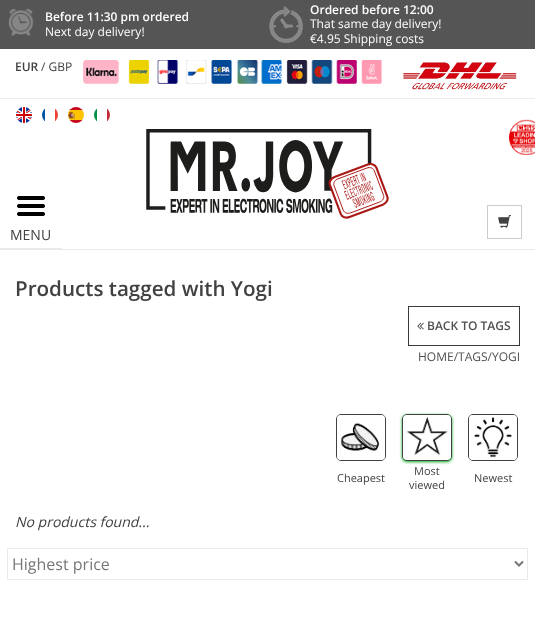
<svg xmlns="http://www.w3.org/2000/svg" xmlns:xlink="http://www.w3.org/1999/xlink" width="535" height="618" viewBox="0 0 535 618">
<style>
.cls-1{font:600 12px Open Sans;fill:#ffffff}
.cls-2{font:12px Open Sans;fill:#ffffff}
.cls-3{font:600 12px Open Sans;fill:#414141}
.cls-4{font:12px Open Sans;fill:#414141}
.cls-5{font:14px Open Sans;fill:#414141}
.cls-6{font:600 20.6px Open Sans;fill:#414141}
.cls-7{font:600 12px Open Sans;fill:#505050}
.cls-8{font:12px Open Sans;fill:#505050}
.cls-9{font:11px Open Sans;fill:#414141}
.cls-10{font:italic 14px Open Sans;fill:#414141}
.cls-11{font:16px Open Sans;fill:#777777}
</style>
<rect width="100%" height="100%" fill="#ffffff"/>
<rect fill="#555555" x="0" y="0" width="535" height="49"/>
<image xlink:href="image0.png" x="8" y="8" width="26" height="28"/>
<image xlink:href="image1.png" x="269" y="6" width="34" height="37"/>
<rect fill="#ededed" x="0" y="98" width="535" height="1"/>
<image xlink:href="image2.png" x="16" y="107" width="16" height="16"/>
<image xlink:href="image3.png" x="42" y="108" width="16" height="14"/>
<image xlink:href="image4.png" x="68" y="107" width="16" height="16"/>
<image xlink:href="image5.png" x="94" y="108" width="16" height="14"/>
<image xlink:href="image6.png" x="83" y="60" width="299" height="24"/>
<image xlink:href="image7.png" x="402" y="61" width="116" height="30"/>
<rect fill="#eaeaea" x="0" y="249" width="535" height="1"/>
<image xlink:href="image8.png" x="146" y="129" width="243" height="90"/>
<image xlink:href="image9.png" x="509" y="119" width="26" height="36"/>
<rect fill="#eaeaea" x="0" y="248" width="62" height="1"/>
<image xlink:href="image10.png" x="17" y="196" width="28" height="20"/>
<rect fill="none" stroke="#cccccc" x="487.5" y="205.5" width="34" height="33"/>
<image xlink:href="image11.png" x="498" y="215" width="13" height="13"/>
<rect fill="none" stroke="#3b3b3b" x="408.5" y="306.5" width="111" height="39"/>
<image xlink:href="image12.png" x="417" y="322" width="7" height="8"/>
<rect fill="none" stroke="#414141" x="336.5" y="414.5" width="49" height="46" rx="4.5"/>
<image xlink:href="image13.png" x="337" y="415" width="48" height="45"/>
<rect fill="#00ab17" filter="blur(1.5px)" x="402" y="415" width="50" height="47" rx="5"/>
<rect fill="none" stroke="#414141" x="402.5" y="414.5" width="49" height="46" rx="4.5"/>
<image xlink:href="image14.png" x="403" y="415" width="48" height="45"/>
<rect fill="none" stroke="#414141" x="468.5" y="414.5" width="49" height="46" rx="4.5"/>
<image xlink:href="image15.png" x="469" y="415" width="48" height="45"/>
<rect fill="none" stroke="#eaeaea" x="7.5" y="548.5" width="520" height="31"/>
<path fill="none" stroke="#777777" stroke-width="2" d="M515 561.5L519 565.5L523 561.5"/>
<text class="cls-1" x="45" y="21">Before 11:30 pm ordered</text>
<text class="cls-2" x="45" y="36">Next day delivery!</text>
<text class="cls-1" x="310" y="14">Ordered before 12:00</text>
<text class="cls-2"><tspan x="310" y="28">That same day delivery!</tspan><tspan x="310" y="43">€4.95 Shipping costs</tspan></text>
<text class="cls-3" x="15" y="71">EUR</text>
<text class="cls-4" x="41" y="71">/ GBP</text>
<text class="cls-5" x="10" y="240">MENU</text>
<text class="cls-6" x="15" y="296">Products tagged with Yogi</text>
<text class="cls-7" x="427" y="330">BACK TO TAGS</text>
<text class="cls-8" x="418" y="361">HOME/TAGS/YOGI</text>
<text class="cls-9" x="337" y="482">Cheapest</text>
<text class="cls-9" x="414" y="475">Most</text>
<text class="cls-9" x="409" y="489">viewed</text>
<text class="cls-9" x="474" y="482">Newest</text>
<text class="cls-10" x="15" y="527">No products found...</text>
<text class="cls-11" x="12" y="570">Highest price</text>
</svg>
